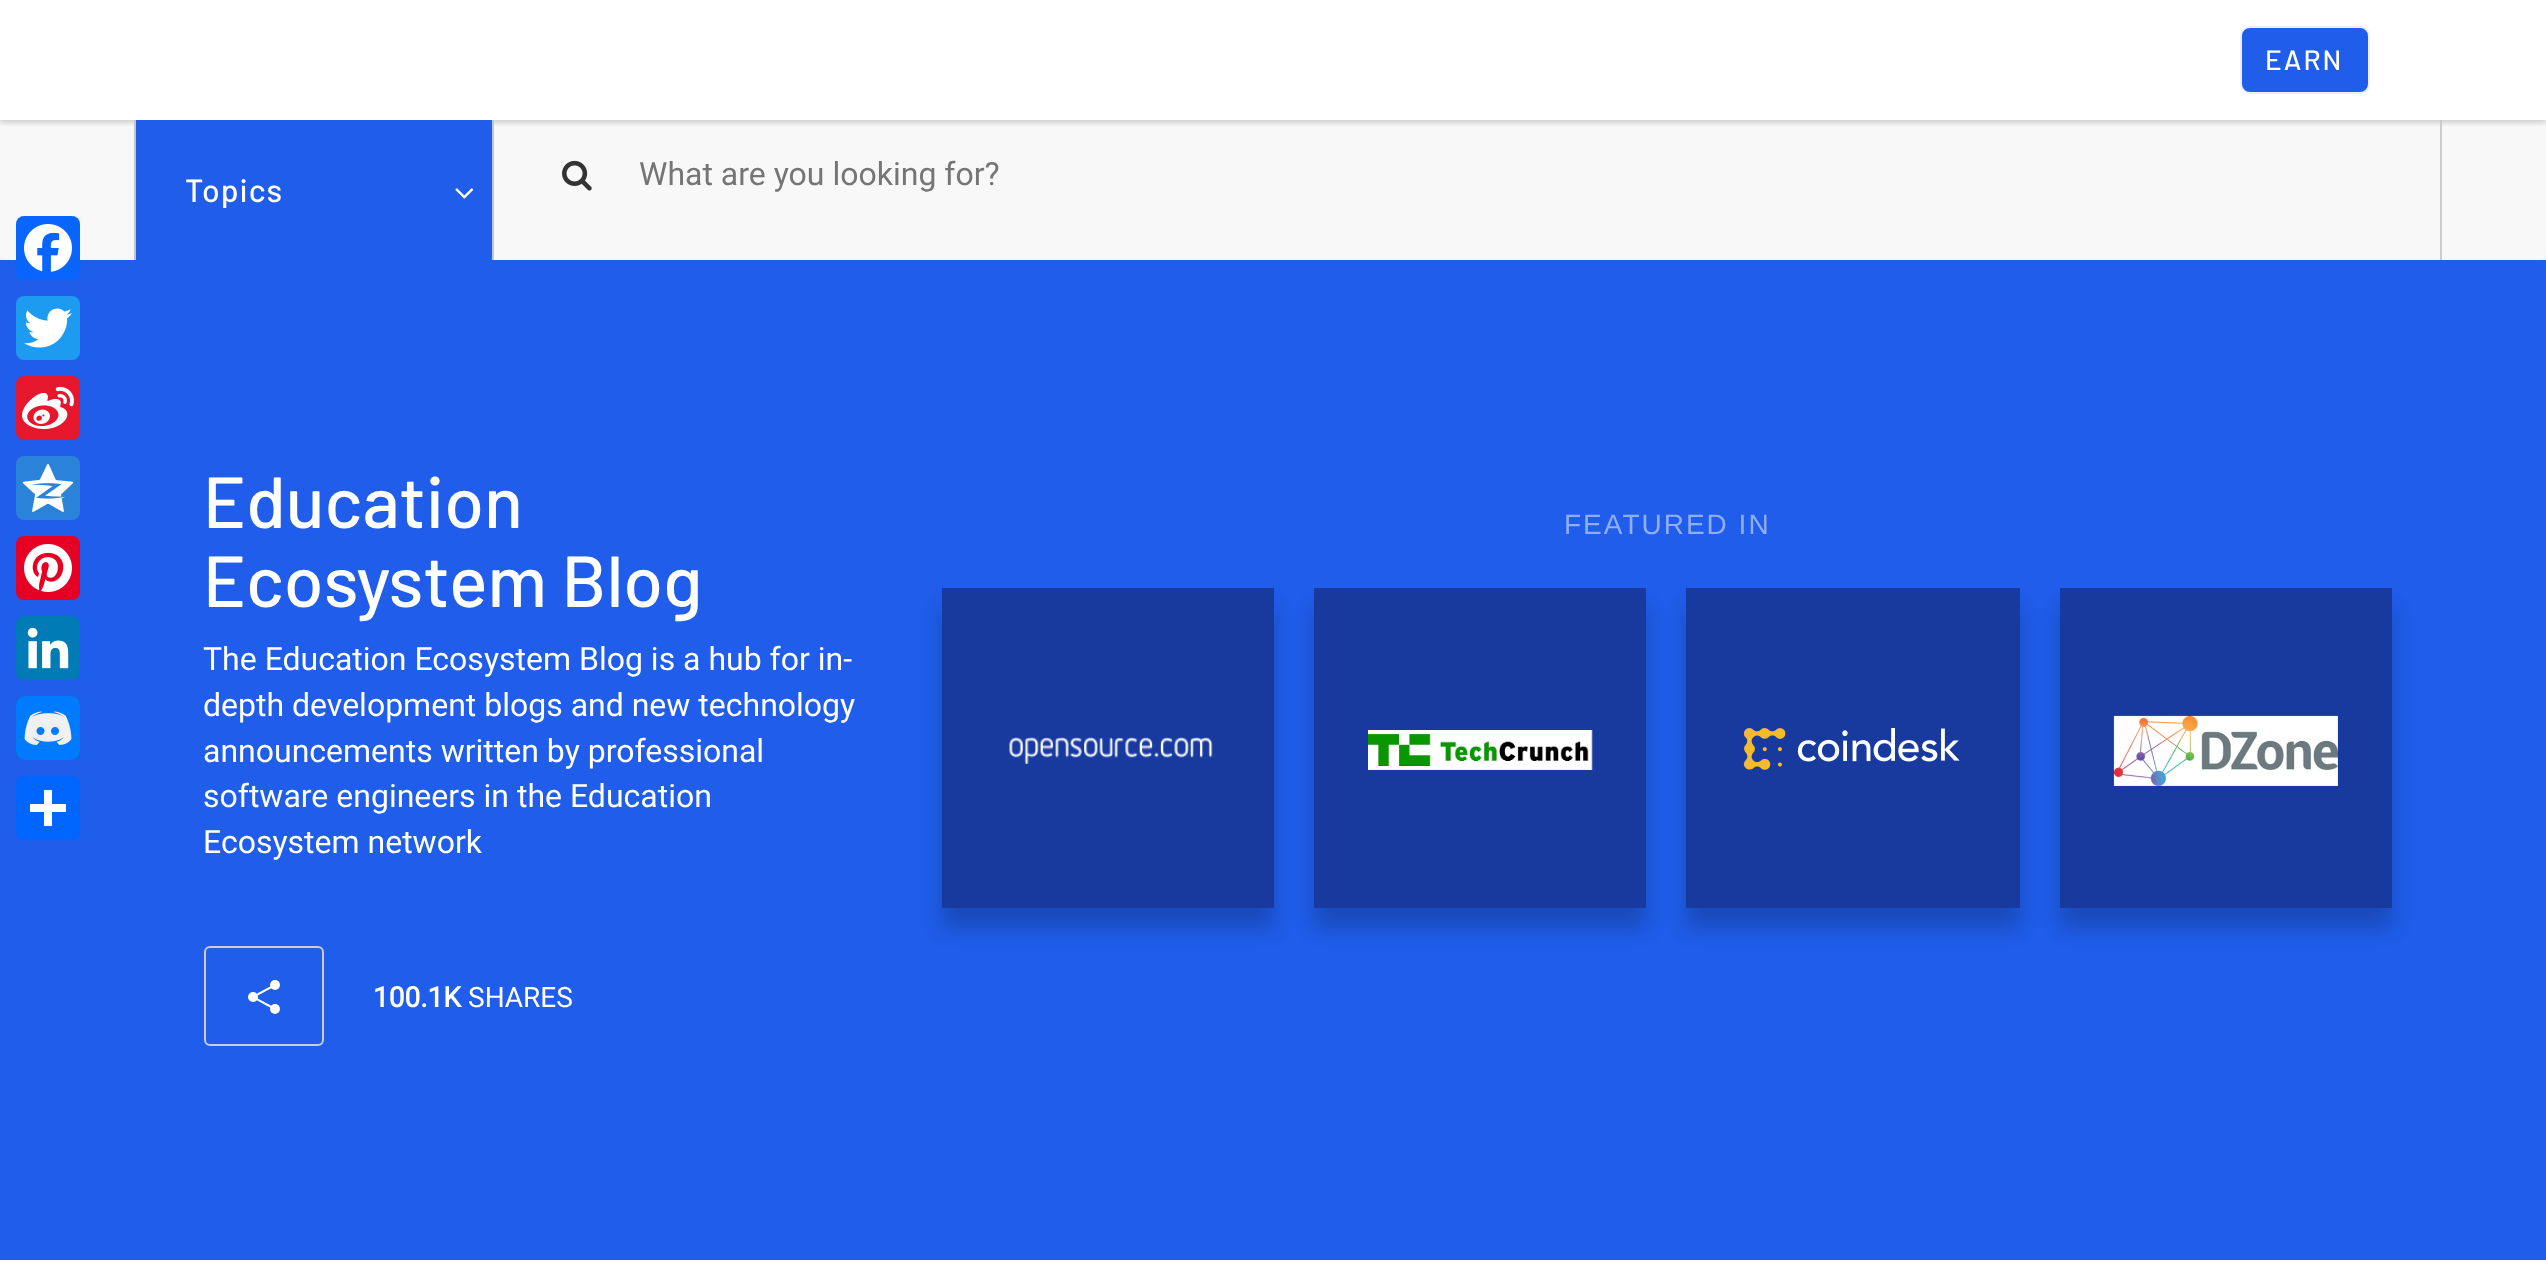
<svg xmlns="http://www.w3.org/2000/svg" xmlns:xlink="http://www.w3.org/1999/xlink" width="2546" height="1278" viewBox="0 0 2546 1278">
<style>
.cls-1{font:500 28px Barlow;letter-spacing:2px;fill:#ffffff}
.cls-2{font:500 32px Barlow;letter-spacing:1px;fill:#ffffff}
.cls-3{font:32px Roboto;fill:#757575}
.cls-4{font:500 72px Barlow;fill:#ffffff}
.cls-5{font:32px Roboto;fill:#ffffff}
.cls-6{font:bold 28px Roboto;fill:#ffffff}
.cls-7{font:28px Roboto;fill:#ffffff}
.cls-8{font:28px Liberation Sans;letter-spacing:2px;fill:#8faef5}
</style>
<defs>
<clipPath id="clip1"><rect x="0" y="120" width="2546" height="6"/></clipPath>
</defs>
<rect width="100%" height="100%" fill="#ffffff"/>
<rect fill="#f3f4f7" x="0" y="120" width="2546" height="140"/>
<rect fill="#f8f8f8" x="0" y="120" width="2546" height="140" rx="8"/>
<g clip-path="url(#clip1)">
<rect fill="#000000" fill-opacity="0.2" filter="blur(3px)" x="0" y="2" width="2546" height="120"/>
</g>
<rect fill="#1f5dea" stroke="#eceff3" stroke-width="2" x="2241" y="27" width="128" height="66" rx="9"/>
<rect fill="#c4c6ca" x="492" y="120" width="2" height="140"/>
<rect fill="#c4c6ca" x="134" y="120" width="2" height="140"/>
<rect fill="#1f5dea" x="136" y="120" width="356" height="140"/>
<image xlink:href="image0.png" x="455" y="188" width="19" height="11"/>
<rect fill="#cccccc" x="2440" y="120" width="2" height="140"/>
<image xlink:href="image1.png" x="562" y="160" width="30" height="31"/>
<rect fill="#1f5dea" x="0" y="260" width="2546" height="1000"/>
<rect fill="#0866ff" x="16" y="216" width="64" height="64" rx="8"/>
<image xlink:href="image2.png" x="24" y="224" width="48" height="48"/>
<rect fill="#1d9bf0" x="16" y="296" width="64" height="64" rx="8"/>
<image xlink:href="image3.png" x="24" y="308" width="48" height="40"/>
<rect fill="#e6162d" x="16" y="376" width="64" height="64" rx="8"/>
<image xlink:href="image4.png" x="22" y="386" width="52" height="44"/>
<rect fill="#2b82d9" x="16" y="456" width="64" height="64" rx="8"/>
<image xlink:href="image5.png" x="22" y="464" width="52" height="48"/>
<rect fill="#e60023" x="16" y="536" width="64" height="64" rx="8"/>
<image xlink:href="image6.png" x="24" y="544" width="48" height="48"/>
<rect fill="#007bb5" x="16" y="616" width="64" height="64" rx="8"/>
<image xlink:href="image7.png" x="27" y="627" width="42" height="42"/>
<rect fill="#007bb5" x="16" y="696" width="64" height="64" rx="8"/>
<image xlink:href="image8.png" x="16" y="696" width="64" height="64"/>
<rect fill="#0166ff" x="16" y="776" width="64" height="64" rx="8"/>
<rect fill="#ffffff" x="44" y="790" width="8" height="36"/>
<rect fill="#ffffff" x="30" y="804" width="36" height="8"/>
<rect fill="none" stroke="#cccccc" stroke-width="2" x="205" y="947" width="118" height="98" rx="5"/>
<circle fill="#ffffff" cx="275" cy="985" r="5"/>
<circle fill="#ffffff" cx="275" cy="1009" r="5"/>
<circle fill="#ffffff" cx="253" cy="997" r="5"/>
<path fill="none" stroke="#ffffff" stroke-width="2" d="M253 997L275 985M253 997L275 1009"/>
<rect fill="#000000" fill-opacity="0.2" filter="blur(10px)" x="942" y="608" width="332" height="320"/>
<rect fill="#183a9e" x="942" y="588" width="332" height="320"/>
<image xlink:href="image9.png" x="1009" y="737" width="204" height="27"/>
<rect fill="#000000" fill-opacity="0.2" filter="blur(10px)" x="1314" y="608" width="332" height="320"/>
<rect fill="#183a9e" x="1314" y="588" width="332" height="320"/>
<image xlink:href="image10.png" x="1368" y="730" width="225" height="40"/>
<rect fill="#000000" fill-opacity="0.2" filter="blur(10px)" x="1686" y="608" width="334" height="320"/>
<rect fill="#183a9e" x="1686" y="588" width="334" height="320"/>
<image xlink:href="image11.png" x="1743" y="728" width="217" height="42"/>
<rect fill="#000000" fill-opacity="0.2" filter="blur(10px)" x="2060" y="608" width="332" height="320"/>
<rect fill="#183a9e" x="2060" y="588" width="332" height="320"/>
<image xlink:href="image12.png" x="2113" y="715" width="225" height="71"/>
<text class="cls-1" x="2265" y="70">EARN</text>
<text class="cls-2" x="185" y="202">Topics</text>
<text class="cls-3" x="639" y="185">What are you looking for?</text>
<text class="cls-4"><tspan x="203" y="528">Education</tspan><tspan x="203" y="607">Ecosystem Blog</tspan></text>
<text class="cls-5"><tspan x="203" y="670">The Education Ecosystem Blog is a hub for in-</tspan><tspan x="203" y="716">depth development blogs and new technology</tspan><tspan x="203" y="762">announcements written by professional</tspan><tspan x="203" y="807">software engineers in the Education</tspan><tspan x="203" y="853">Ecosystem network</tspan></text>
<text class="cls-6" x="373" y="1007">100.1K</text>
<text class="cls-7" x="468" y="1007">SHARES</text>
<text class="cls-8" x="1564" y="534">FEATURED IN</text>
</svg>
